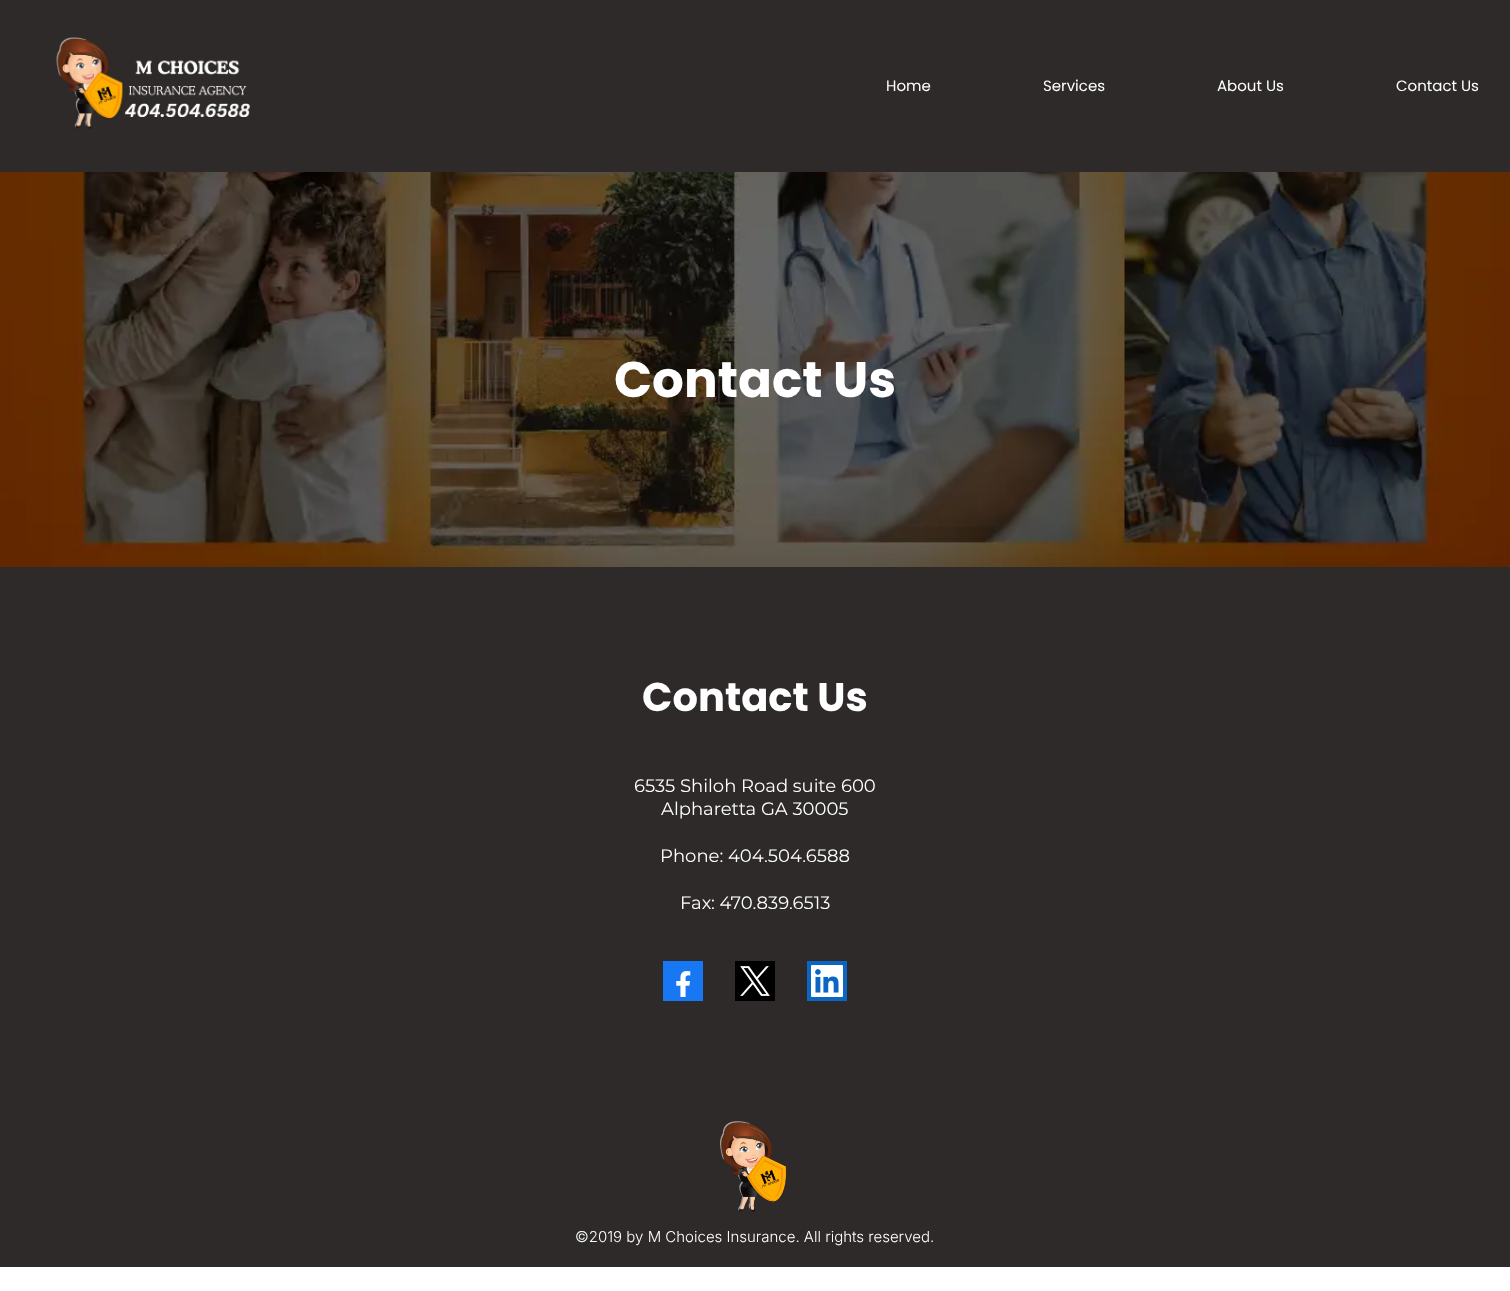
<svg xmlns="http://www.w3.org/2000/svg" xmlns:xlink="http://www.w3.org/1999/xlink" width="1510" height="1291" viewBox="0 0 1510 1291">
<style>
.cls-1{font:15px Poppins;fill:#ffffff}
.cls-2{font:bold 50px Poppins;fill:#ffffff}
.cls-3{font:bold 40px Poppins;fill:#ffffff}
.cls-4{font:18px Montserrat;fill:#ffffff}
.cls-5{font:300 15px Inter;fill:#ffffff}
</style>
<rect width="100%" height="100%" fill="#ffffff"/>
<rect fill="#2e2a2a" x="0" y="0" width="1510" height="172"/>
<image xlink:href="image0.png" x="56" y="37" width="195" height="92"/>
<image xlink:href="image1.png" x="0" y="172" width="1510" height="395"/>
<rect fill="#2e2a2a" x="0" y="567" width="1510" height="700"/>
<image xlink:href="image2.png" x="663" y="961" width="40" height="40"/>
<image xlink:href="image3.png" x="735" y="961" width="40" height="40"/>
<image xlink:href="image4.png" x="807" y="961" width="40" height="40"/>
<image xlink:href="image5.png" x="720" y="1121" width="67" height="91"/>
<text class="cls-1" x="886" y="91">Home</text>
<text class="cls-1" x="1043" y="91">Services</text>
<text class="cls-1" x="1217" y="91">About Us</text>
<text class="cls-1" x="1396" y="91">Contact Us</text>
<text class="cls-2" x="614" y="397">Contact Us</text>
<text class="cls-3" x="642" y="711">Contact Us</text>
<text class="cls-4" x="634" y="792">6535 Shiloh Road suite 600</text>
<text class="cls-4" x="661" y="815">Alpharetta GA 30005</text>
<text class="cls-4" x="660" y="862">Phone: 404.504.6588</text>
<text class="cls-4" x="680" y="909">Fax: 470.839.6513</text>
<text class="cls-5" x="575" y="1242">©2019 by M Choices Insurance. All rights reserved.</text>
</svg>
